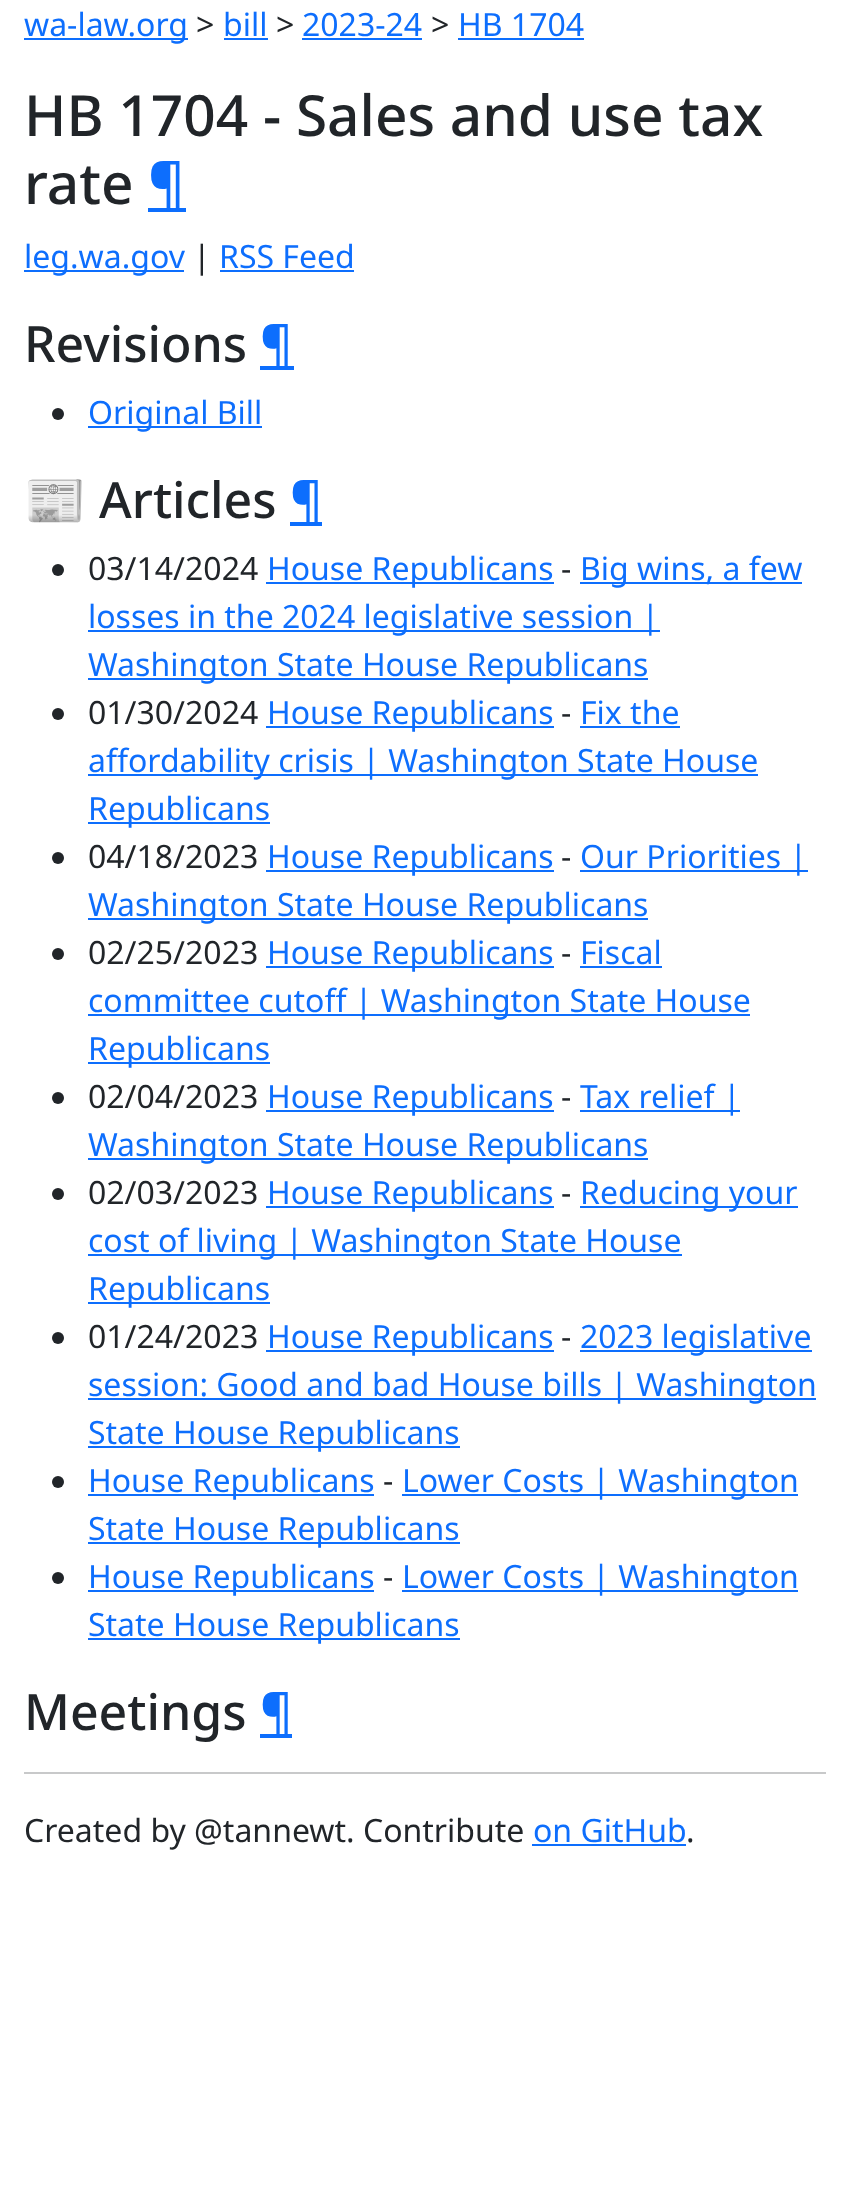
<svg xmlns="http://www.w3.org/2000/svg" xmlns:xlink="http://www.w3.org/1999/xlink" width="850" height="2197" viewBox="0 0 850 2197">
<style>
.cls-1{font:32px Noto Sans;fill:#0d6efd}
.cls-2{font:32px Noto Sans;fill:#212529}
.cls-3{font:500 56.75px Noto Sans;fill:#212529}
.cls-4{font:500 56.75px Noto Sans;fill:#0d6efd}
.cls-5{font:500 50px Noto Sans;fill:#212529}
.cls-6{font:500 50px Noto Sans;fill:#0d6efd}
.cls-7{font:50px Noto Color Emoji;fill:#212529}
</style>
<rect width="100%" height="100%" fill="#ffffff"/>
<rect fill="#0d6efd" x="24" y="38" width="164" height="2"/>
<rect fill="#0d6efd" x="224" y="38" width="44" height="2"/>
<rect fill="#0d6efd" x="302" y="38" width="120" height="2"/>
<rect fill="#0d6efd" x="458" y="38" width="126" height="2"/>
<rect fill="#0d6efd" x="148" y="208" width="38" height="4"/>
<rect fill="#0d6efd" x="24" y="270" width="160" height="2"/>
<rect fill="#0d6efd" x="220" y="270" width="134" height="2"/>
<rect fill="#0d6efd" x="260" y="366" width="34" height="4"/>
<circle fill="#212529" cx="58" cy="414" r="6"/>
<rect fill="#0d6efd" x="88" y="426" width="174" height="2"/>
<rect fill="#0d6efd" x="290" y="522" width="32" height="4"/>
<circle fill="#212529" cx="58" cy="570" r="6"/>
<rect fill="#0d6efd" x="266" y="582" width="288" height="2"/>
<rect fill="#0d6efd" x="580" y="582" width="222" height="2"/>
<rect fill="#0d6efd" x="88" y="630" width="572" height="2"/>
<rect fill="#0d6efd" x="88" y="678" width="560" height="2"/>
<circle fill="#212529" cx="58" cy="714" r="6"/>
<rect fill="#0d6efd" x="266" y="726" width="288" height="2"/>
<rect fill="#0d6efd" x="580" y="726" width="100" height="2"/>
<rect fill="#0d6efd" x="88" y="774" width="670" height="2"/>
<rect fill="#0d6efd" x="88" y="822" width="182" height="2"/>
<circle fill="#212529" cx="58" cy="858" r="6"/>
<rect fill="#0d6efd" x="266" y="870" width="288" height="2"/>
<rect fill="#0d6efd" x="580" y="870" width="228" height="2"/>
<rect fill="#0d6efd" x="88" y="918" width="560" height="2"/>
<circle fill="#212529" cx="58" cy="954" r="6"/>
<rect fill="#0d6efd" x="266" y="966" width="288" height="2"/>
<rect fill="#0d6efd" x="580" y="966" width="82" height="2"/>
<rect fill="#0d6efd" x="88" y="1014" width="662" height="2"/>
<rect fill="#0d6efd" x="88" y="1062" width="182" height="2"/>
<circle fill="#212529" cx="58" cy="1098" r="6"/>
<rect fill="#0d6efd" x="266" y="1110" width="288" height="2"/>
<rect fill="#0d6efd" x="580" y="1110" width="160" height="2"/>
<rect fill="#0d6efd" x="88" y="1158" width="560" height="2"/>
<circle fill="#212529" cx="58" cy="1194" r="6"/>
<rect fill="#0d6efd" x="266" y="1206" width="288" height="2"/>
<rect fill="#0d6efd" x="580" y="1206" width="218" height="2"/>
<rect fill="#0d6efd" x="88" y="1254" width="594" height="2"/>
<rect fill="#0d6efd" x="88" y="1302" width="182" height="2"/>
<circle fill="#212529" cx="58" cy="1338" r="6"/>
<rect fill="#0d6efd" x="266" y="1350" width="288" height="2"/>
<rect fill="#0d6efd" x="580" y="1350" width="232" height="2"/>
<rect fill="#0d6efd" x="88" y="1398" width="728" height="2"/>
<rect fill="#0d6efd" x="88" y="1446" width="372" height="2"/>
<circle fill="#212529" cx="58" cy="1482" r="6"/>
<rect fill="#0d6efd" x="88" y="1494" width="286" height="2"/>
<rect fill="#0d6efd" x="402" y="1494" width="396" height="2"/>
<rect fill="#0d6efd" x="88" y="1542" width="372" height="2"/>
<circle fill="#212529" cx="58" cy="1578" r="6"/>
<rect fill="#0d6efd" x="88" y="1590" width="286" height="2"/>
<rect fill="#0d6efd" x="402" y="1590" width="396" height="2"/>
<rect fill="#0d6efd" x="88" y="1638" width="372" height="2"/>
<rect fill="#0d6efd" x="260" y="1734" width="32" height="4"/>
<rect fill="#c8c9ca" x="24" y="1772" width="802" height="2"/>
<rect fill="#0d6efd" x="532" y="1844" width="154" height="2"/>
<text class="cls-1" x="24" y="36">wa-law.org</text>
<text class="cls-2" x="196" y="36">&gt;</text>
<text class="cls-1" x="223" y="36">bill</text>
<text class="cls-2" x="276" y="36">&gt;</text>
<text class="cls-1" x="302" y="36">2023-24</text>
<text class="cls-2" x="431" y="36">&gt;</text>
<text class="cls-1" x="458" y="36">HB 1704</text>
<text class="cls-3"><tspan x="24" y="136">HB 1704 - Sales and use tax</tspan><tspan x="24" y="204">rate</tspan></text>
<text class="cls-4" x="148" y="204">¶</text>
<text class="cls-1" x="24" y="268">leg.wa.gov</text>
<text class="cls-2" x="193" y="268">|</text>
<text class="cls-1" x="219" y="268">RSS Feed</text>
<text class="cls-5" x="24" y="362">Revisions</text>
<text class="cls-6" x="260" y="362">¶</text>
<text class="cls-1" x="88" y="424">Original Bill</text>
<text class="cls-7" x="24" y="518">📰</text>
<text class="cls-5" x="99" y="518">Articles</text>
<text class="cls-6" x="290" y="518">¶</text>
<text class="cls-2" x="88" y="580">03/14/2024</text>
<text class="cls-1" x="267" y="580">House Republicans</text>
<text class="cls-2" x="561" y="580">-</text>
<text class="cls-1" x="580" y="580">Big wins, a few</text>
<text class="cls-1"><tspan x="88" y="628">losses in the 2024 legislative session |</tspan><tspan x="88" y="676">Washington State House Republicans</tspan></text>
<text class="cls-2" x="88" y="724">01/30/2024</text>
<text class="cls-1" x="267" y="724">House Republicans</text>
<text class="cls-2" x="561" y="724">-</text>
<text class="cls-1" x="580" y="724">Fix the</text>
<text class="cls-1"><tspan x="88" y="772">affordability crisis | Washington State House</tspan><tspan x="88" y="820">Republicans</tspan></text>
<text class="cls-2" x="88" y="868">04/18/2023</text>
<text class="cls-1" x="267" y="868">House Republicans</text>
<text class="cls-2" x="561" y="868">-</text>
<text class="cls-1" x="580" y="868">Our Priorities |</text>
<text class="cls-1" x="88" y="916">Washington State House Republicans</text>
<text class="cls-2" x="88" y="964">02/25/2023</text>
<text class="cls-1" x="267" y="964">House Republicans</text>
<text class="cls-2" x="561" y="964">-</text>
<text class="cls-1" x="580" y="964">Fiscal</text>
<text class="cls-1"><tspan x="88" y="1012">committee cutoff | Washington State House</tspan><tspan x="88" y="1060">Republicans</tspan></text>
<text class="cls-2" x="88" y="1108">02/04/2023</text>
<text class="cls-1" x="267" y="1108">House Republicans</text>
<text class="cls-2" x="561" y="1108">-</text>
<text class="cls-1" x="580" y="1108">Tax relief |</text>
<text class="cls-1" x="88" y="1156">Washington State House Republicans</text>
<text class="cls-2" x="88" y="1204">02/03/2023</text>
<text class="cls-1" x="267" y="1204">House Republicans</text>
<text class="cls-2" x="561" y="1204">-</text>
<text class="cls-1" x="580" y="1204">Reducing your</text>
<text class="cls-1"><tspan x="88" y="1252">cost of living | Washington State House</tspan><tspan x="88" y="1300">Republicans</tspan></text>
<text class="cls-2" x="88" y="1348">01/24/2023</text>
<text class="cls-1" x="267" y="1348">House Republicans</text>
<text class="cls-2" x="561" y="1348">-</text>
<text class="cls-1" x="580" y="1348">2023 legislative</text>
<text class="cls-1"><tspan x="88" y="1396">session: Good and bad House bills | Washington</tspan><tspan x="88" y="1444">State House Republicans</tspan><tspan x="88" y="1492">House Republicans</tspan></text>
<text class="cls-2" x="383" y="1492">-</text>
<text class="cls-1" x="402" y="1492">Lower Costs | Washington</text>
<text class="cls-1"><tspan x="88" y="1540">State House Republicans</tspan><tspan x="88" y="1588">House Republicans</tspan></text>
<text class="cls-2" x="383" y="1588">-</text>
<text class="cls-1" x="402" y="1588">Lower Costs | Washington</text>
<text class="cls-1" x="88" y="1636">State House Republicans</text>
<text class="cls-5" x="24" y="1730">Meetings</text>
<text class="cls-6" x="260" y="1730">¶</text>
<text class="cls-2" x="24" y="1842">Created by @tannewt. Contribute</text>
<text class="cls-1" x="533" y="1842">on GitHub</text>
<text class="cls-2" x="686" y="1842">.</text>
</svg>
